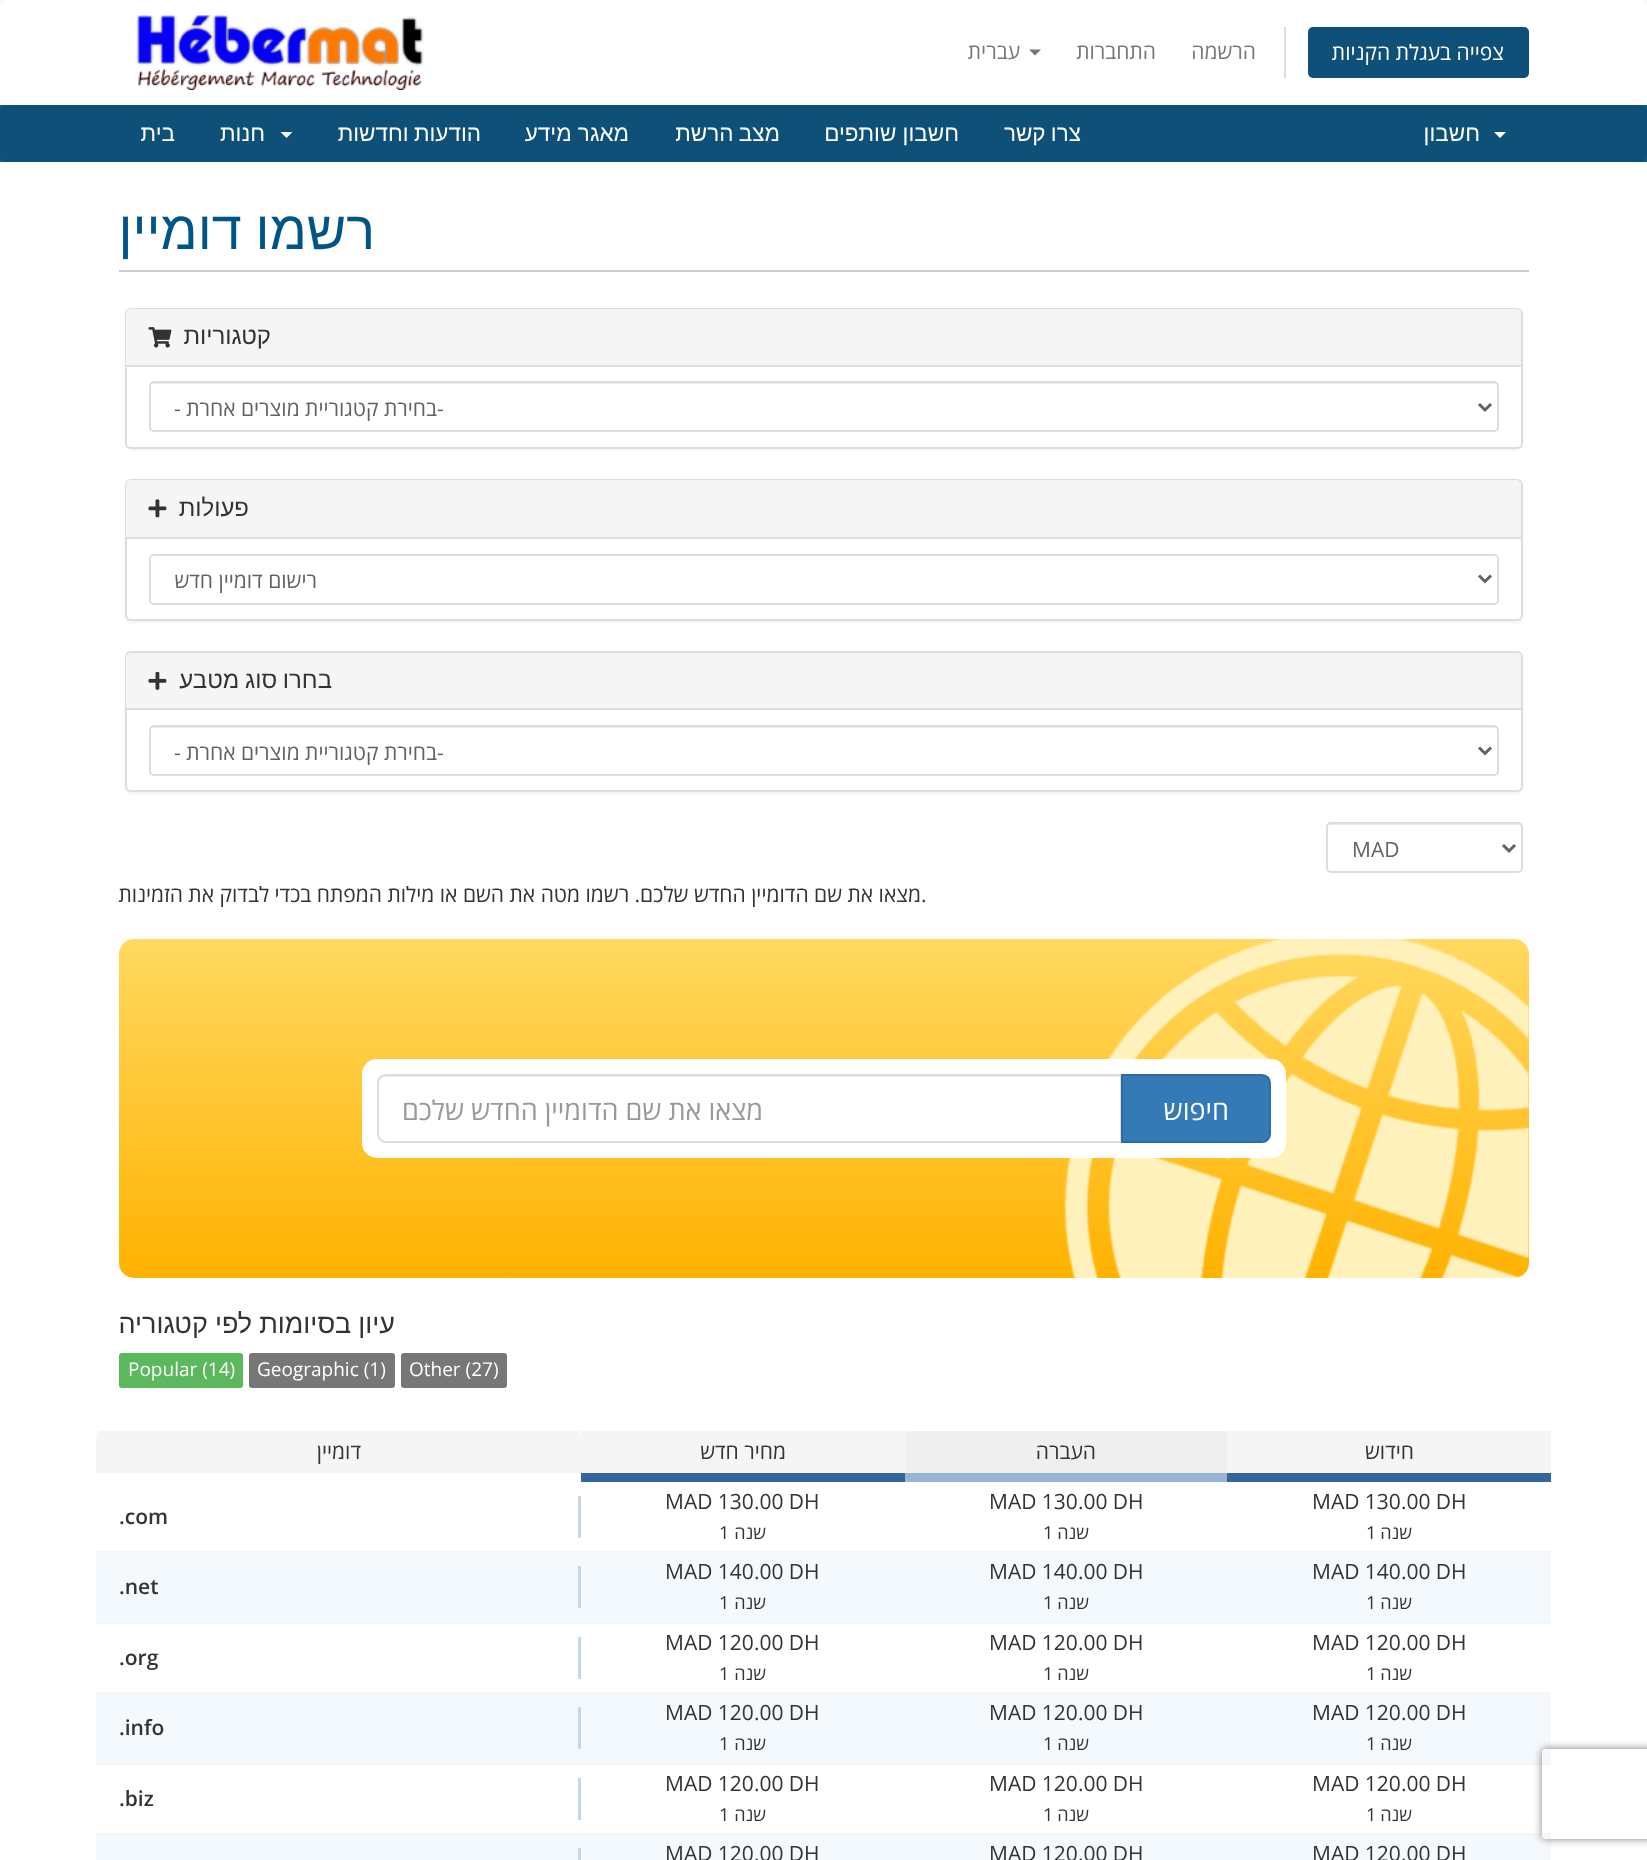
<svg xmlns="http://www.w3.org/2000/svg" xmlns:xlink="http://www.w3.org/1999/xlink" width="1647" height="1860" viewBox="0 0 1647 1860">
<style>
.cls-1{font:21px Open Sans;direction:rtl;fill:#ffffff}
.cls-2{font:21px Open Sans;direction:rtl;fill:#777777}
.cls-3{font:22.5px Liberation Sans;direction:rtl;fill:#ffffff}
.cls-4{font:54px Liberation Sans;direction:rtl;fill:#005588}
.cls-5{font:24px Liberation Sans;direction:rtl;fill:#333333}
.cls-6{font:21px Open Sans;fill:#626262}
.cls-7{font:21px Open Sans;direction:rtl;fill:#626262}
.cls-8{font:21px Open Sans;fill:#333333}
.cls-9{font:21px Open Sans;direction:rtl;fill:#333333}
.cls-10{font:27px Open Sans;direction:rtl;fill:#ffffff}
.cls-11{font:27px Open Sans;direction:rtl;fill:#999999}
.cls-12{font:27px Liberation Sans;direction:rtl;fill:#333333}
.cls-13{font:19px Open Sans;fill:#ffffff}
.cls-14{font:18px Open Sans;direction:rtl;fill:#333333}
.cls-15{font:18px Open Sans;fill:#333333}
.cls-16{font:600 21px Open Sans;fill:#333333}
</style>
<defs>
<linearGradient id="g1" gradientUnits="userSpaceOnUse" x1="824" y1="939" x2="824" y2="1278"><stop offset="0" stop-color="#ffd960"/><stop offset="1" stop-color="#ffb201"/></linearGradient>
<clipPath id="clip1"><path d="M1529 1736H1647V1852H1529ZM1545 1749H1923C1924.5 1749 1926 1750.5 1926 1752V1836C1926 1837.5 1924.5 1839 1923 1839H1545C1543.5 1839 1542 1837.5 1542 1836V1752C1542 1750.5 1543.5 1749 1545 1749Z" clip-rule="evenodd"/></clipPath>
</defs>
<rect width="100%" height="100%" fill="#f8f8f8"/>
<path fill="#ffffff" d="M8 0H1639C1643.5 0 1647 3.5 1647 8V105H0V8C0 3.5 3.5 0 8 0Z"/>
<rect fill="#dddddd" x="1284" y="27" width="2" height="51"/>
<rect fill="#0e5077" x="1308" y="27" width="221" height="51" rx="5"/>
<path fill="#777777" d="M1029 49.5H1041L1035 55.5Z"/>
<image xlink:href="image0.png" x="136" y="15" width="288" height="75"/>
<rect fill="#006687" x="0" y="105" width="1647" height="57"/>
<rect fill="#0e5077" x="0" y="105" width="1647" height="57" rx="6"/>
<path fill="#ffffff" d="M1494 132H1506L1500 138Z"/>
<path fill="#ffffff" d="M280.5 132H292.5L286.5 138Z"/>
<rect fill="#ffffff" x="0" y="162" width="1647" height="1698"/>
<rect fill="#cccccc" x="119" y="270" width="1410" height="2"/>
<rect fill="#000000" fill-opacity="0.05" filter="blur(1px)" x="125" y="309" width="1398" height="141" rx="6"/>
<rect fill="#ffffff" stroke="#dddddd" stroke-width="2" x="126" y="309" width="1396" height="139" rx="5"/>
<path fill="#f5f5f5" d="M131 309H1516C1519 309 1521 311 1521 314V366H126V314C126 311 128 309 131 309Z"/>
<rect fill="#dddddd" x="126" y="365" width="1395" height="2"/>
<image xlink:href="image1.png" x="148" y="327" width="24" height="21"/>
<path fill="#ececec" d="M153 384H1494C1496 384 1497 385 1497 387V386C1497 384 1496 383 1494 383H153C151 383 150 384 150 386V387C150 385 151 384 153 384Z"/>
<rect fill="none" stroke="#dddddd" stroke-width="2" x="150" y="382" width="1348" height="49" rx="4"/>
<path fill="none" stroke="#626262" stroke-width="3" d="M1479 404L1485 410L1491 404"/>
<rect fill="#000000" fill-opacity="0.05" filter="blur(1px)" x="125" y="480" width="1398" height="143" rx="6"/>
<rect fill="#ffffff" stroke="#dddddd" stroke-width="2" x="126" y="480" width="1396" height="140" rx="5"/>
<path fill="#f5f5f5" d="M131 480H1516C1519 480 1521 482 1521 485V539H126V485C126 482 128 480 131 480Z"/>
<rect fill="#dddddd" x="126" y="537" width="1395" height="2"/>
<image xlink:href="image2.png" x="148" y="499" width="19" height="19"/>
<rect fill="none" stroke="#dddddd" stroke-width="2" x="150" y="555" width="1348" height="49" rx="4"/>
<path fill="none" stroke="#626262" stroke-width="3" d="M1479 575.5L1485 581.5L1491 575.5"/>
<rect fill="#000000" fill-opacity="0.05" filter="blur(1px)" x="125" y="653" width="1398" height="141" rx="6"/>
<rect fill="#ffffff" stroke="#dddddd" stroke-width="2" x="126" y="652" width="1396" height="139" rx="5"/>
<path fill="#f5f5f5" d="M131 653H1516C1519 653 1521 655 1521 658V710H126V658C126 655 128 653 131 653Z"/>
<rect fill="#dddddd" x="126" y="708" width="1395" height="2"/>
<image xlink:href="image3.png" x="148" y="671" width="19" height="19"/>
<path fill="#ececec" d="M153 728H1494C1496 728 1497 729 1497 730V729C1497 727 1496 726 1494 726H153C151 726 150 727 150 729V730C150 729 151 728 153 728Z"/>
<rect fill="none" stroke="#dddddd" stroke-width="2" x="150" y="726" width="1348" height="49" rx="4"/>
<path fill="none" stroke="#626262" stroke-width="3" d="M1479 747.5L1485 753.5L1491 747.5"/>
<path fill="#ececec" d="M1330 825H1518C1520 825 1521 826 1521 828C1521 826 1520 824 1518 824H1331C1329 824 1328 826 1328 828C1328 826 1329 825 1330 825Z"/>
<rect fill="none" stroke="#dddddd" stroke-width="2" x="1327" y="823" width="195" height="49" rx="4"/>
<path fill="none" stroke="#626262" stroke-width="3" d="M1503 845L1509 851L1515 845"/>
<rect fill="url(#g1)" x="119" y="939" width="1410" height="339" rx="15"/>
<image xlink:href="image4.png" x="1063" y="939" width="466" height="339"/>
<rect fill="#ffffff" x="362" y="1059" width="924" height="99" rx="15"/>
<path fill="#ececec" d="M386 1077H1120V1142H1121V1076H386C382 1076 378 1080 378 1084C378 1080 381 1077 386 1077Z"/>
<path fill="none" stroke="#dddddd" stroke-width="2" d="M386 1075H1121V1142H386C381.5 1142 378 1138.5 378 1134V1083C378 1078.5 381.5 1075 386 1075Z"/>
<path fill="#337ab7" stroke="#2e6da4" stroke-width="2" d="M1122 1075H1262C1266.5 1075 1270 1078.5 1270 1083V1134C1270 1138.5 1266.5 1142 1262 1142H1122Z"/>
<rect fill="#f3f9fd" x="96" y="1694" width="1455" height="69"/>
<rect fill="#f5f5f5" x="96" y="1763" width="1455" height="2"/>
<rect fill="#f5f5f5" x="96" y="1833" width="1455" height="2"/>
<rect fill="#f3f9fd" x="96" y="1835" width="1455" height="25"/>
<g clip-path="url(#clip1)">
<rect fill="#808080" filter="blur(4px)" x="1542" y="1749" width="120" height="90" rx="3"/>
</g>
<rect fill="#777777" x="401" y="1353" width="106" height="35" rx="3"/>
<rect fill="#777777" x="249" y="1353" width="146" height="35" rx="3"/>
<rect fill="#5cb85c" x="119" y="1353" width="124" height="35" rx="3"/>
<rect fill="#f5f5f5" x="581" y="1431" width="970" height="42"/>
<rect fill="#336699" x="1227" y="1473" width="324" height="9"/>
<path fill="#efefef" d="M911 1431H1221C1224.5 1431 1227 1433.5 1227 1437V1482H905V1437C905 1433.5 907.5 1431 911 1431Z"/>
<rect fill="#97b5d2" x="905" y="1473" width="322" height="9"/>
<rect fill="#336699" x="581" y="1473" width="324" height="9"/>
<path fill="#f5f5f5" d="M102 1431H575C578.5 1431 581 1433.5 581 1437V1473H96V1437C96 1433.5 98.5 1431 102 1431Z"/>
<rect fill="#f5f5f5" x="96" y="1551" width="1455" height="2"/>
<rect fill="#c7d7e6" x="578" y="1496" width="3" height="42"/>
<rect fill="#f3f9fd" x="96" y="1553" width="1455" height="69"/>
<rect fill="#f5f5f5" x="96" y="1622" width="1455" height="2"/>
<rect fill="#c7d7e6" x="578" y="1566" width="3" height="42"/>
<rect fill="#f5f5f5" x="96" y="1692" width="1455" height="2"/>
<rect fill="#c7d7e6" x="578" y="1637" width="3" height="42"/>
<rect fill="#c7d7e6" x="578" y="1707" width="3" height="42"/>
<rect fill="#c7d7e6" x="578" y="1778" width="3" height="42"/>
<rect fill="#c7d7e6" x="578" y="1848" width="3" height="12"/>
<text class="cls-1" x="1504" y="60">צפייה בעגלת הקניות</text>
<text class="cls-2" x="1256" y="59">הרשמה</text>
<text class="cls-2" x="1156" y="59">התחברות</text>
<text class="cls-2" x="1020" y="59">עברית</text>
<text class="cls-3" x="1480" y="141">חשבון</text>
<text class="cls-3" x="1081" y="141" word-spacing="-1">צרו קשר</text>
<text class="cls-3" x="959" y="141">חשבון שותפים</text>
<text class="cls-3" x="780" y="141" word-spacing="-1">מצב הרשת</text>
<text class="cls-3" x="629" y="141">מאגר מידע</text>
<text class="cls-3" x="481" y="141" word-spacing="-1">הודעות וחדשות</text>
<text class="cls-3" x="265" y="141">חנות</text>
<text class="cls-3" x="175" y="141">בית</text>
<text class="cls-4" x="375" y="249" word-spacing="-1">רשמו דומיין</text>
<text class="cls-5" x="271" y="344">קטגוריות</text>
<text class="cls-6" x="437" y="416">-</text>
<text class="cls-7" x="437" y="416">בחירת קטגוריית מוצרים אחרת</text>
<text class="cls-6" x="174" y="416">-</text>
<text class="cls-5" x="249" y="516">פעולות</text>
<text class="cls-7" x="317" y="588">רישום דומיין חדש</text>
<text class="cls-5" x="332" y="688" word-spacing="-1">בחרו סוג מטבע</text>
<text class="cls-6" x="437" y="760">-</text>
<text class="cls-7" x="437" y="760">בחירת קטגוריית מוצרים אחרת</text>
<text class="cls-6" x="174" y="760">-</text>
<text class="cls-6" x="1352" y="857">MAD</text>
<text class="cls-8" x="921" y="902">.</text>
<text class="cls-9" x="921" y="902">מצאו את שם הדומיין החדש שלכם. רשמו מטה את השם או מילות המפתח בכדי לבדוק את הזמינות</text>
<text class="cls-10" x="1229" y="1120">חיפוש</text>
<text class="cls-11" x="763" y="1120">מצאו את שם הדומיין החדש שלכם</text>
<text class="cls-12" x="395" y="1333" word-spacing="-0.5">עיון בסיומות לפי קטגוריה</text>
<text class="cls-13" x="409" y="1376">Other (27)</text>
<text class="cls-13" x="257" y="1376">Geographic (1)</text>
<text class="cls-13" x="128" y="1376">Popular (14)</text>
<text class="cls-9" x="1414" y="1459">חידוש</text>
<text class="cls-9" x="1096" y="1459">העברה</text>
<text class="cls-9" x="786" y="1459">מחיר חדש</text>
<text class="cls-9" x="361" y="1459">דומיין</text>
<text class="cls-8" x="1312" y="1509">MAD 130.00 DH</text>
<text class="cls-14" x="1412" y="1539">שנה</text>
<text class="cls-15" x="1366" y="1539">1</text>
<text class="cls-8" x="989" y="1509">MAD 130.00 DH</text>
<text class="cls-14" x="1089" y="1539">שנה</text>
<text class="cls-15" x="1043" y="1539">1</text>
<text class="cls-8" x="665" y="1509">MAD 130.00 DH</text>
<text class="cls-14" x="766" y="1539">שנה</text>
<text class="cls-15" x="719" y="1539">1</text>
<text class="cls-16" x="119" y="1524">.com</text>
<text class="cls-8" x="1312" y="1579">MAD 140.00 DH</text>
<text class="cls-14" x="1412" y="1609">שנה</text>
<text class="cls-15" x="1366" y="1609">1</text>
<text class="cls-8" x="989" y="1579">MAD 140.00 DH</text>
<text class="cls-14" x="1089" y="1609">שנה</text>
<text class="cls-15" x="1043" y="1609">1</text>
<text class="cls-8" x="665" y="1579">MAD 140.00 DH</text>
<text class="cls-14" x="766" y="1609">שנה</text>
<text class="cls-15" x="719" y="1609">1</text>
<text class="cls-16" x="119" y="1594">.net</text>
<text class="cls-8" x="1312" y="1650">MAD 120.00 DH</text>
<text class="cls-14" x="1412" y="1680">שנה</text>
<text class="cls-15" x="1366" y="1680">1</text>
<text class="cls-8" x="989" y="1650">MAD 120.00 DH</text>
<text class="cls-14" x="1089" y="1680">שנה</text>
<text class="cls-15" x="1043" y="1680">1</text>
<text class="cls-8" x="665" y="1650">MAD 120.00 DH</text>
<text class="cls-14" x="766" y="1680">שנה</text>
<text class="cls-15" x="719" y="1680">1</text>
<text class="cls-16" x="119" y="1665">.org</text>
<text class="cls-8" x="1312" y="1720">MAD 120.00 DH</text>
<text class="cls-14" x="1412" y="1750">שנה</text>
<text class="cls-15" x="1366" y="1750">1</text>
<text class="cls-8" x="989" y="1720">MAD 120.00 DH</text>
<text class="cls-14" x="1089" y="1750">שנה</text>
<text class="cls-15" x="1043" y="1750">1</text>
<text class="cls-8" x="665" y="1720">MAD 120.00 DH</text>
<text class="cls-14" x="766" y="1750">שנה</text>
<text class="cls-15" x="719" y="1750">1</text>
<text class="cls-16" x="119" y="1735">.info</text>
<text class="cls-8" x="1312" y="1791">MAD 120.00 DH</text>
<text class="cls-14" x="1412" y="1821">שנה</text>
<text class="cls-15" x="1366" y="1821">1</text>
<text class="cls-8" x="989" y="1791">MAD 120.00 DH</text>
<text class="cls-14" x="1089" y="1821">שנה</text>
<text class="cls-15" x="1043" y="1821">1</text>
<text class="cls-8" x="665" y="1791">MAD 120.00 DH</text>
<text class="cls-14" x="766" y="1821">שנה</text>
<text class="cls-15" x="719" y="1821">1</text>
<text class="cls-16" x="119" y="1806">.biz</text>
<text class="cls-8" x="1312" y="1861">MAD 120.00 DH</text>
<text class="cls-8" x="989" y="1861">MAD 120.00 DH</text>
<text class="cls-8" x="665" y="1861">MAD 120.00 DH</text>
</svg>
